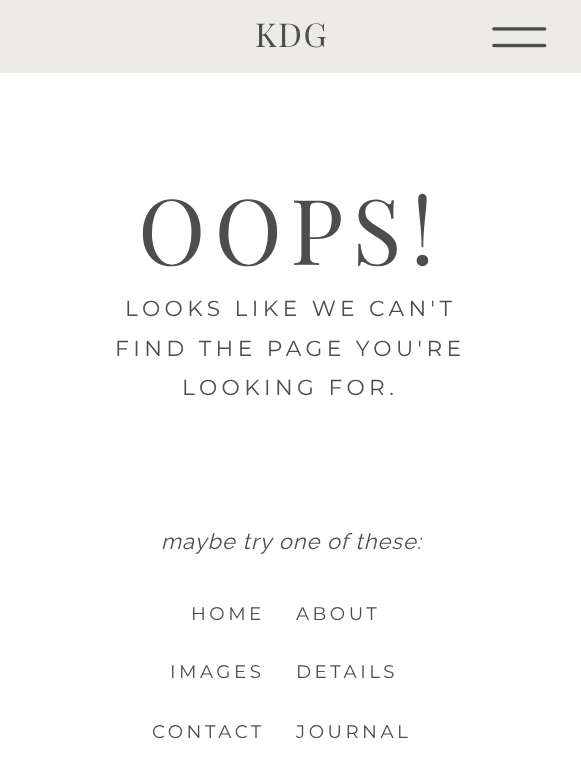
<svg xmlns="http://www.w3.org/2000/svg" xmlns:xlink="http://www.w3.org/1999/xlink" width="581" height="783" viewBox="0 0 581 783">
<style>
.cls-1{font:33px Playfair Display;letter-spacing:1.5px;fill:#4d4d4d}
.cls-2{font:91px Playfair Display;letter-spacing:9px;fill:#4d4d4d}
.cls-3{font:100 21.75px Montserrat;letter-spacing:4.4px;fill:#4d4d4d}
.cls-4{font:italic 100 21.75px Raleway;letter-spacing:1.1px;fill:#4d4d4d}
.cls-5{font:100 18.25px Montserrat;letter-spacing:3.5px;fill:#4d4d4d}
</style>
<rect width="100%" height="100%" fill="#ffffff"/>
<rect fill="#ecebe8" x="0" y="0" width="581" height="73"/>
<image xlink:href="image0.png" x="492" y="27" width="55" height="21"/>
<text class="cls-1" x="255" y="47">KDG</text>
<text class="cls-2" x="138" y="265">OOPS!</text>
<text class="cls-3" x="125" y="316">LOOKS LIKE WE CAN'T</text>
<text class="cls-3" x="115" y="356">FIND THE PAGE YOU'RE</text>
<text class="cls-3" x="182" y="395">LOOKING FOR.</text>
<text class="cls-4" x="161" y="549">maybe try one of these:</text>
<text class="cls-5" x="191" y="620">HOME</text>
<text class="cls-5" x="296" y="620">ABOUT</text>
<text class="cls-5" x="170" y="678">IMAGES</text>
<text class="cls-5" x="296" y="678">DETAILS</text>
<text class="cls-5" x="152" y="738">CONTACT</text>
<text class="cls-5" x="296" y="738">JOURNAL</text>
</svg>
